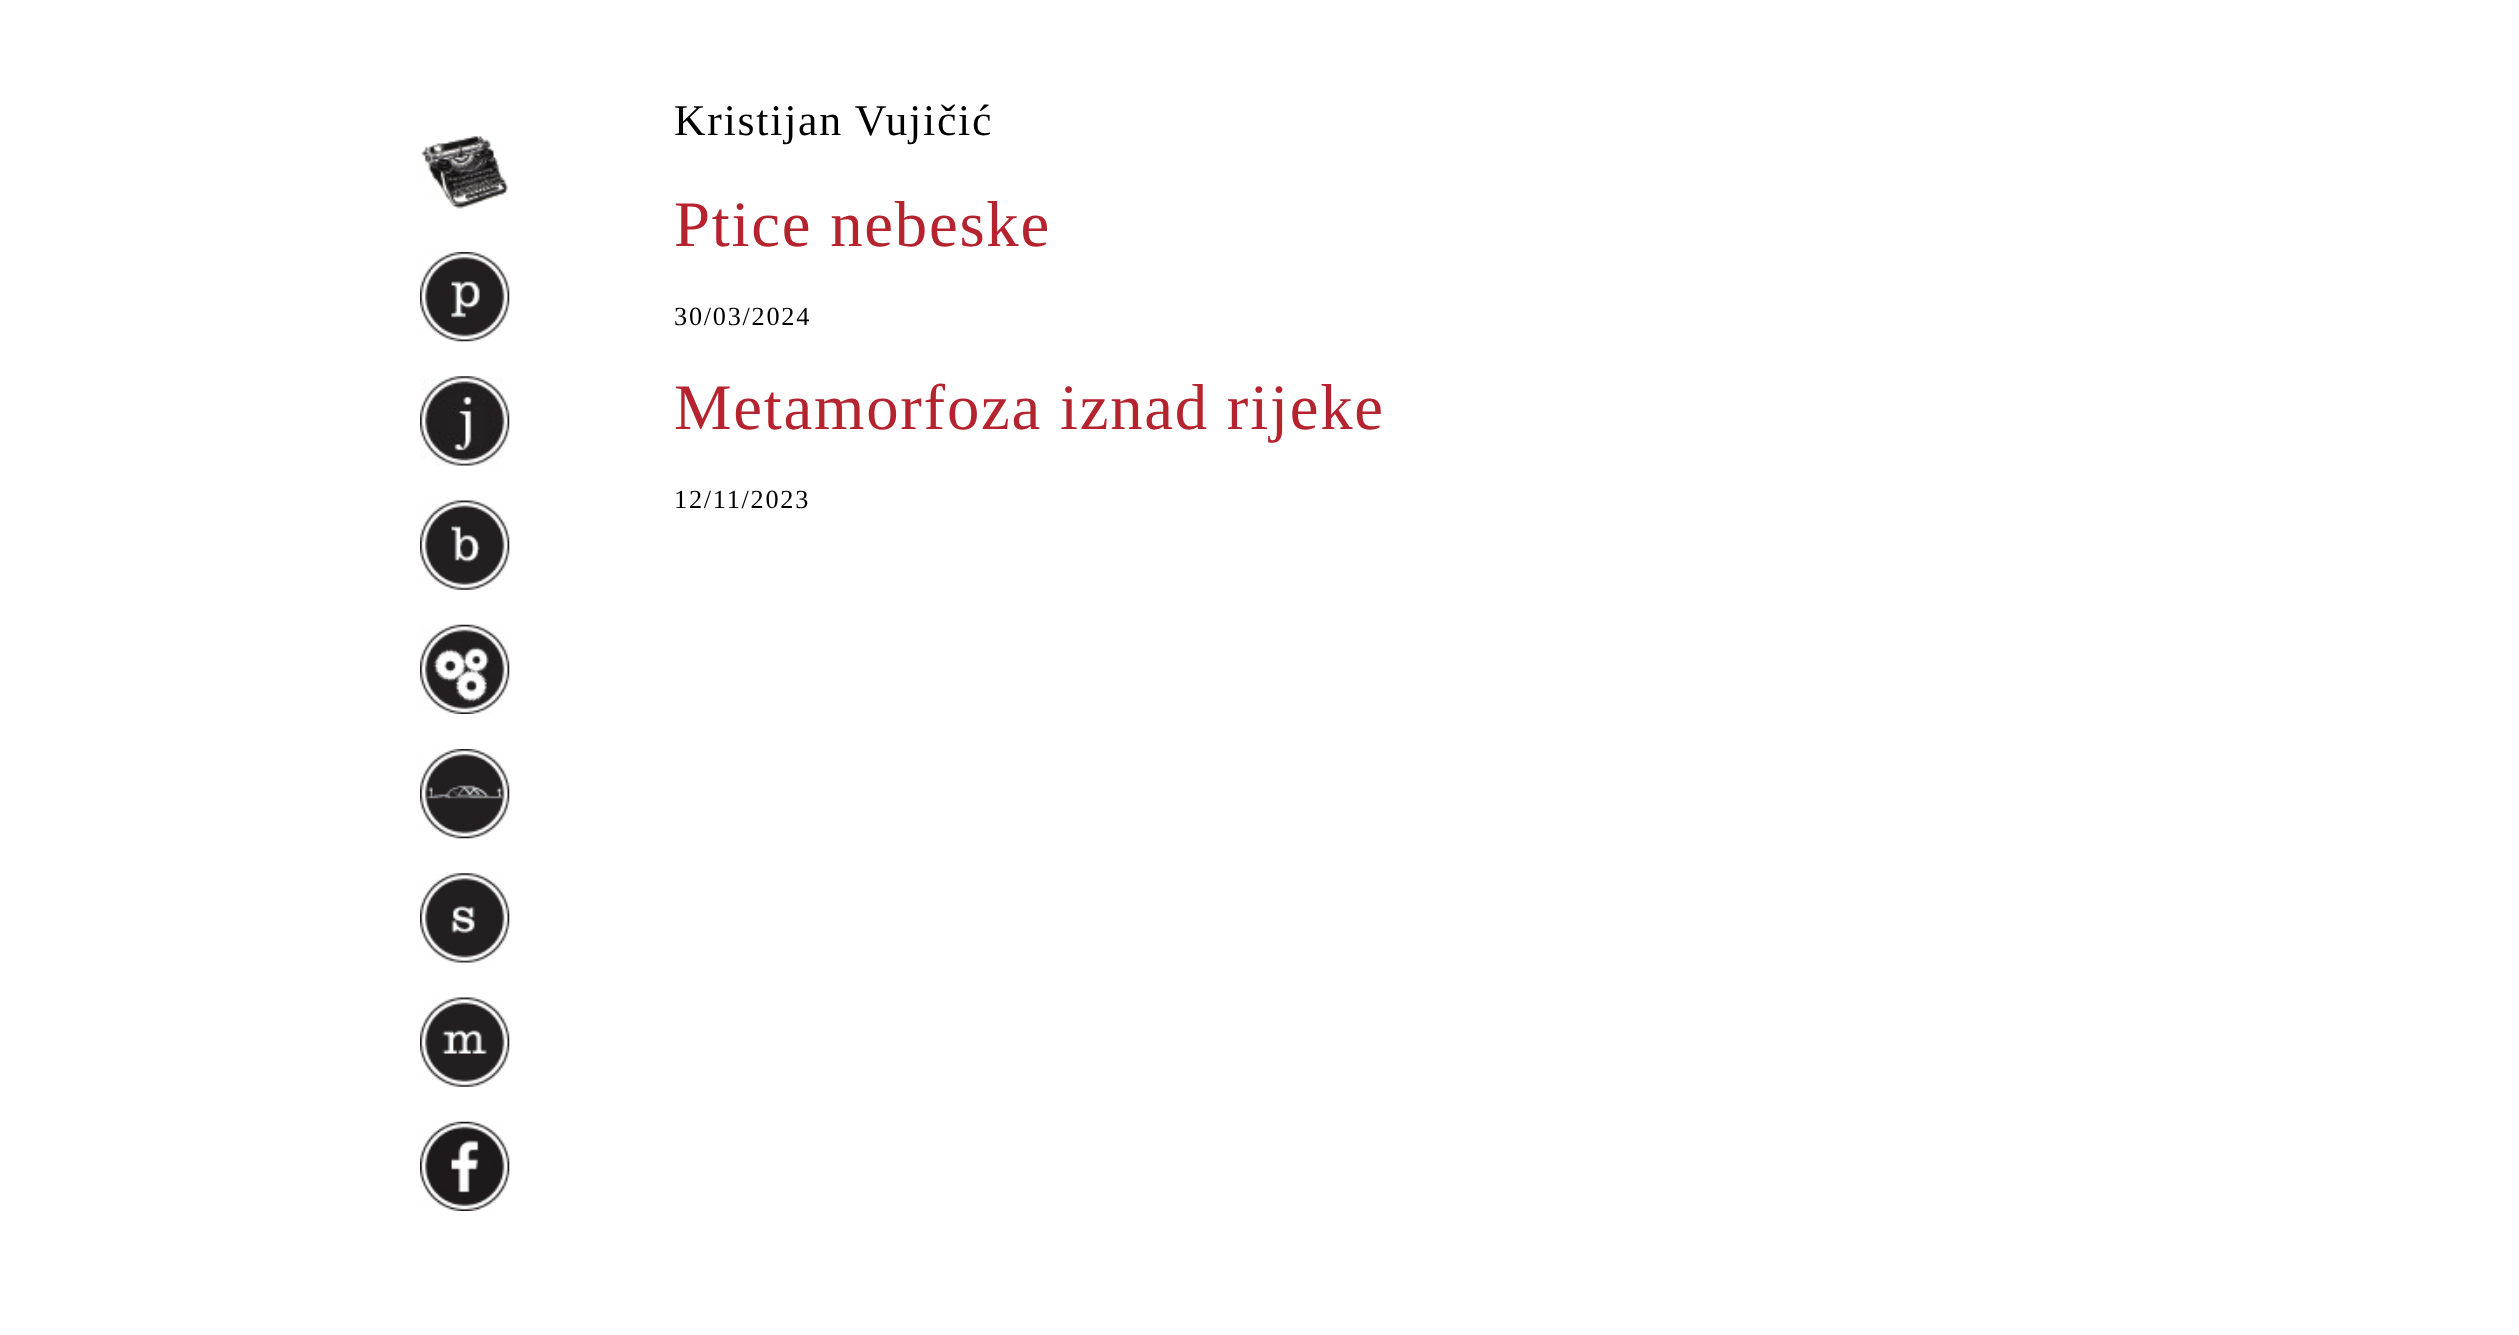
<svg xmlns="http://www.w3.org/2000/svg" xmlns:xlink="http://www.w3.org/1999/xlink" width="2519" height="1335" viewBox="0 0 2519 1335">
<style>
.cls-1{font:43.75px Liberation Serif;letter-spacing:1.75px;fill:#000000}
.cls-2{font:64.75px Liberation Serif;letter-spacing:1.75px;fill:#b5232e}
.cls-3{font:26.25px Liberation Serif;letter-spacing:1.75px;fill:#000000}
</style>
<rect width="100%" height="100%" fill="#ffffff"/>
<image xlink:href="image0.png" x="421" y="136" width="87" height="73"/>
<image xlink:href="image1.png" x="420" y="252" width="90" height="90"/>
<image xlink:href="image2.png" x="420" y="376" width="90" height="90"/>
<image xlink:href="image3.png" x="420" y="500" width="90" height="90"/>
<image xlink:href="image4.png" x="420" y="624" width="90" height="90"/>
<image xlink:href="image5.png" x="420" y="749" width="90" height="90"/>
<image xlink:href="image6.png" x="420" y="873" width="90" height="90"/>
<image xlink:href="image7.png" x="420" y="997" width="90" height="90"/>
<image xlink:href="image8.png" x="420" y="1121" width="90" height="90"/>
<text class="cls-1" x="674" y="135">Kristijan Vujičić</text>
<text class="cls-2" x="674" y="246">Ptice nebeske</text>
<text class="cls-3" x="674" y="325">30/03/2024</text>
<text class="cls-2" x="674" y="429">Metamorfoza iznad rijeke</text>
<text class="cls-3" x="674" y="508">12/11/2023</text>
</svg>
